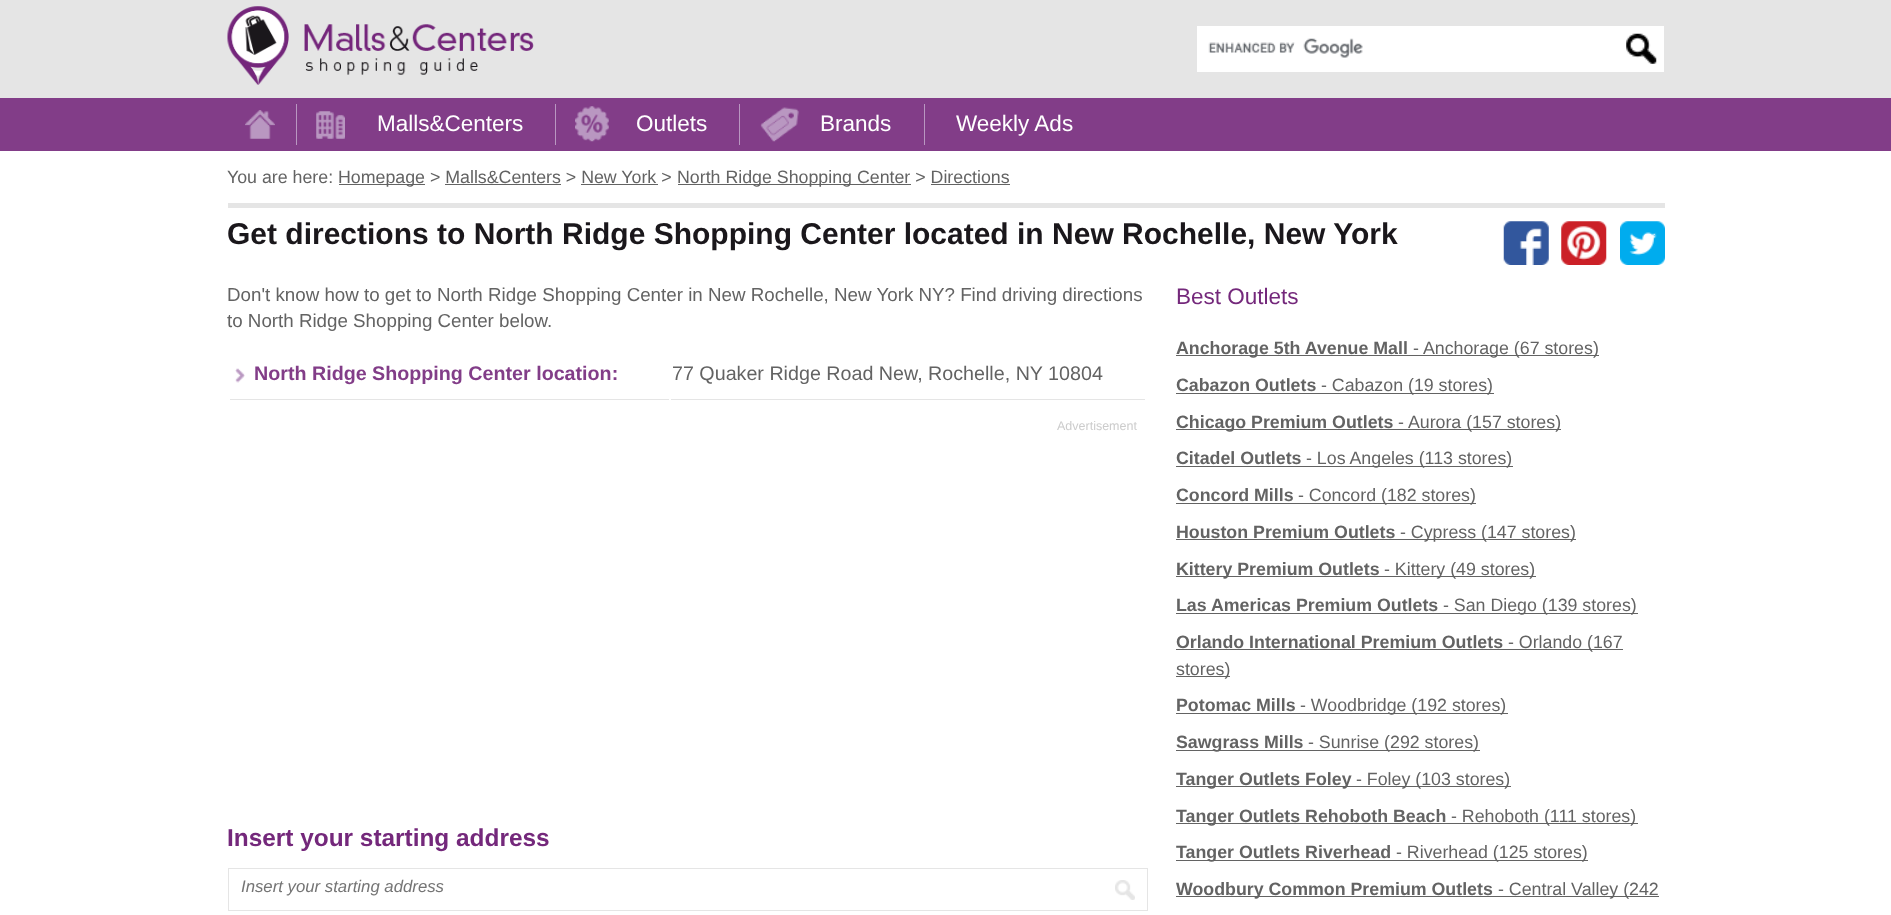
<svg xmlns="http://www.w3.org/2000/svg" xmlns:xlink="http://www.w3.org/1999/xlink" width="1891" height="915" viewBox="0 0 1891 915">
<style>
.cls-1{font:22.5px Liberation Sans;fill:#ffffff}
.cls-2{font:17.8px Liberation Sans;fill:#636363}
.cls-3{font:bold 30px Liberation Sans;fill:#1a171b}
.cls-4{font:18.75px Liberation Sans;fill:#636363}
.cls-5{font:bold 19.7px Liberation Sans;fill:#823d88}
.cls-6{font:19.7px Liberation Sans;fill:#636363}
.cls-7{font:12.5px Liberation Sans;fill:#cccccc}
.cls-8{font:bold 24.4px Liberation Sans;fill:#74287b}
.cls-9{font:italic 16.75px Liberation Sans;fill:#757575}
.cls-10{font:22.5px Liberation Sans;fill:#74287b}
.cls-11{font:bold 17.8px Liberation Sans;fill:#636363}
</style>
<rect width="100%" height="100%" fill="#ffffff"/>
<rect fill="#e5e5e5" x="0" y="0" width="1891" height="98"/>
<image xlink:href="image0.png" x="227" y="6" width="307" height="79"/>
<rect fill="#ffffff" x="1197" y="26" width="467" height="46"/>
<image xlink:href="image1.png" x="1208" y="38" width="155" height="20"/>
<image xlink:href="image2.png" x="1626" y="33" width="31" height="31"/>
<rect fill="#823d88" x="0" y="98" width="1891" height="53"/>
<image xlink:href="image3.png" x="245" y="110" width="30" height="29"/>
<rect fill="#b997c1" x="296" y="104" width="1" height="41"/>
<image xlink:href="image4.png" x="316" y="111" width="29" height="28"/>
<rect fill="#b997c1" x="555" y="104" width="1" height="41"/>
<image xlink:href="image5.png" x="575" y="106" width="34" height="36"/>
<rect fill="#b997c1" x="739" y="104" width="1" height="41"/>
<image xlink:href="image6.png" x="760" y="107" width="39" height="35"/>
<rect fill="#b997c1" x="924" y="104" width="1" height="41"/>
<rect fill="#e5e5e5" x="228" y="203" width="1437" height="5"/>
<rect fill="#636363" x="339" y="184" width="86" height="1"/>
<rect fill="#636363" x="678" y="184" width="233" height="1"/>
<rect fill="#636363" x="445" y="184" width="116" height="1"/>
<rect fill="#636363" x="581" y="184" width="77" height="1"/>
<rect fill="#636363" x="931" y="184" width="79" height="1"/>
<image xlink:href="image7.png" x="1503" y="221" width="46" height="44"/>
<image xlink:href="image8.png" x="1561" y="221" width="46" height="44"/>
<image xlink:href="image9.png" x="1620" y="221" width="45" height="44"/>
<image xlink:href="image10.png" x="235" y="368" width="10" height="15"/>
<rect fill="#e5e5e5" x="230" y="399" width="439" height="1"/>
<rect fill="#e5e5e5" x="671" y="399" width="474" height="1"/>
<rect fill="none" stroke="#e5e5e5" x="228.5" y="868.5" width="919" height="42"/>
<image xlink:href="image11.png" x="1115" y="880" width="20" height="20"/>
<rect fill="#636363" x="1176" y="355" width="423" height="1"/>
<rect fill="#636363" x="1176" y="393" width="318" height="1"/>
<rect fill="#636363" x="1176" y="429" width="385" height="1"/>
<rect fill="#636363" x="1176" y="466" width="337" height="1"/>
<rect fill="#636363" x="1176" y="503" width="300" height="1"/>
<rect fill="#636363" x="1176" y="539" width="400" height="1"/>
<rect fill="#636363" x="1176" y="576" width="360" height="1"/>
<rect fill="#636363" x="1176" y="613" width="462" height="1"/>
<rect fill="#636363" x="1176" y="649" width="447" height="1"/>
<rect fill="#636363" x="1176" y="676" width="54" height="1"/>
<rect fill="#636363" x="1176" y="713" width="332" height="1"/>
<rect fill="#636363" x="1176" y="750" width="304" height="1"/>
<rect fill="#636363" x="1176" y="786" width="175" height="1"/>
<rect fill="#636363" x="1351" y="786" width="160" height="1"/>
<rect fill="#636363" x="1176" y="823" width="462" height="1"/>
<rect fill="#636363" x="1176" y="860" width="412" height="1"/>
<rect fill="#636363" x="1176" y="896" width="483" height="1"/>
<text class="cls-1" x="377" y="131">Malls&amp;Centers</text>
<text class="cls-1" x="636" y="131">Outlets</text>
<text class="cls-1" x="820" y="131">Brands</text>
<text class="cls-1" x="956" y="131">Weekly Ads</text>
<text class="cls-2" x="227" y="183">You are here:</text>
<text class="cls-2" x="338" y="183">Homepage &gt; Malls&amp;Centers &gt; New York &gt;</text>
<text class="cls-2" x="677" y="183">North Ridge Shopping Center &gt; Directions</text>
<text class="cls-3" x="227" y="244">Get directions to North Ridge Shopping Center located in New Rochelle, New York</text>
<text class="cls-4"><tspan x="227" y="301">Don't know how to get to North Ridge Shopping Center in New Rochelle, New York NY? Find driving directions</tspan><tspan x="227" y="327">to North Ridge Shopping Center below.</tspan></text>
<text class="cls-5" x="254" y="380">North Ridge Shopping Center location:</text>
<text class="cls-6" x="672" y="380">77 Quaker Ridge Road New, Rochelle, NY 10804</text>
<text class="cls-7" x="1057" y="430">Advertisement</text>
<text class="cls-8" x="227" y="846">Insert your starting address</text>
<text class="cls-9" x="241" y="892">Insert your starting address</text>
<text class="cls-10" x="1176" y="304">Best Outlets</text>
<text class="cls-11" x="1176" y="354">Anchorage 5th Avenue Mall</text>
<text class="cls-2" x="1413" y="354">- Anchorage (67 stores)</text>
<text class="cls-11" x="1176" y="391">Cabazon Outlets</text>
<text class="cls-2" x="1321" y="391">- Cabazon (19 stores)</text>
<text class="cls-11" x="1176" y="428">Chicago Premium Outlets</text>
<text class="cls-2" x="1398" y="428">- Aurora (157 stores)</text>
<text class="cls-11" x="1176" y="464">Citadel Outlets</text>
<text class="cls-2" x="1306" y="464">- Los Angeles (113 stores)</text>
<text class="cls-11" x="1176" y="501">Concord Mills</text>
<text class="cls-2" x="1298" y="501">- Concord (182 stores)</text>
<text class="cls-11" x="1176" y="538">Houston Premium Outlets</text>
<text class="cls-2" x="1400" y="538">- Cypress (147 stores)</text>
<text class="cls-11" x="1176" y="575">Kittery Premium Outlets</text>
<text class="cls-2" x="1384" y="575">- Kittery (49 stores)</text>
<text class="cls-11" x="1176" y="611">Las Americas Premium Outlets</text>
<text class="cls-2" x="1443" y="611">- San Diego (139 stores)</text>
<text class="cls-11" x="1176" y="648">Orlando International Premium Outlets</text>
<text class="cls-2" x="1508" y="648">- Orlando (167</text>
<text class="cls-2" x="1176" y="675">stores)</text>
<text class="cls-11" x="1176" y="711">Potomac Mills</text>
<text class="cls-2" x="1300" y="711">- Woodbridge (192 stores)</text>
<text class="cls-11" x="1176" y="748">Sawgrass Mills</text>
<text class="cls-2" x="1308" y="748">- Sunrise (292 stores)</text>
<text class="cls-11" x="1176" y="785">Tanger Outlets Foley</text>
<text class="cls-2" x="1356" y="785">- Foley (103 stores)</text>
<text class="cls-11" x="1176" y="822">Tanger Outlets Rehoboth Beach</text>
<text class="cls-2" x="1451" y="822">- Rehoboth (111 stores)</text>
<text class="cls-11" x="1176" y="858">Tanger Outlets Riverhead</text>
<text class="cls-2" x="1396" y="858">- Riverhead (125 stores)</text>
<text class="cls-11" x="1176" y="895">Woodbury Common Premium Outlets</text>
<text class="cls-2" x="1498" y="895">- Central Valley (242</text>
</svg>
